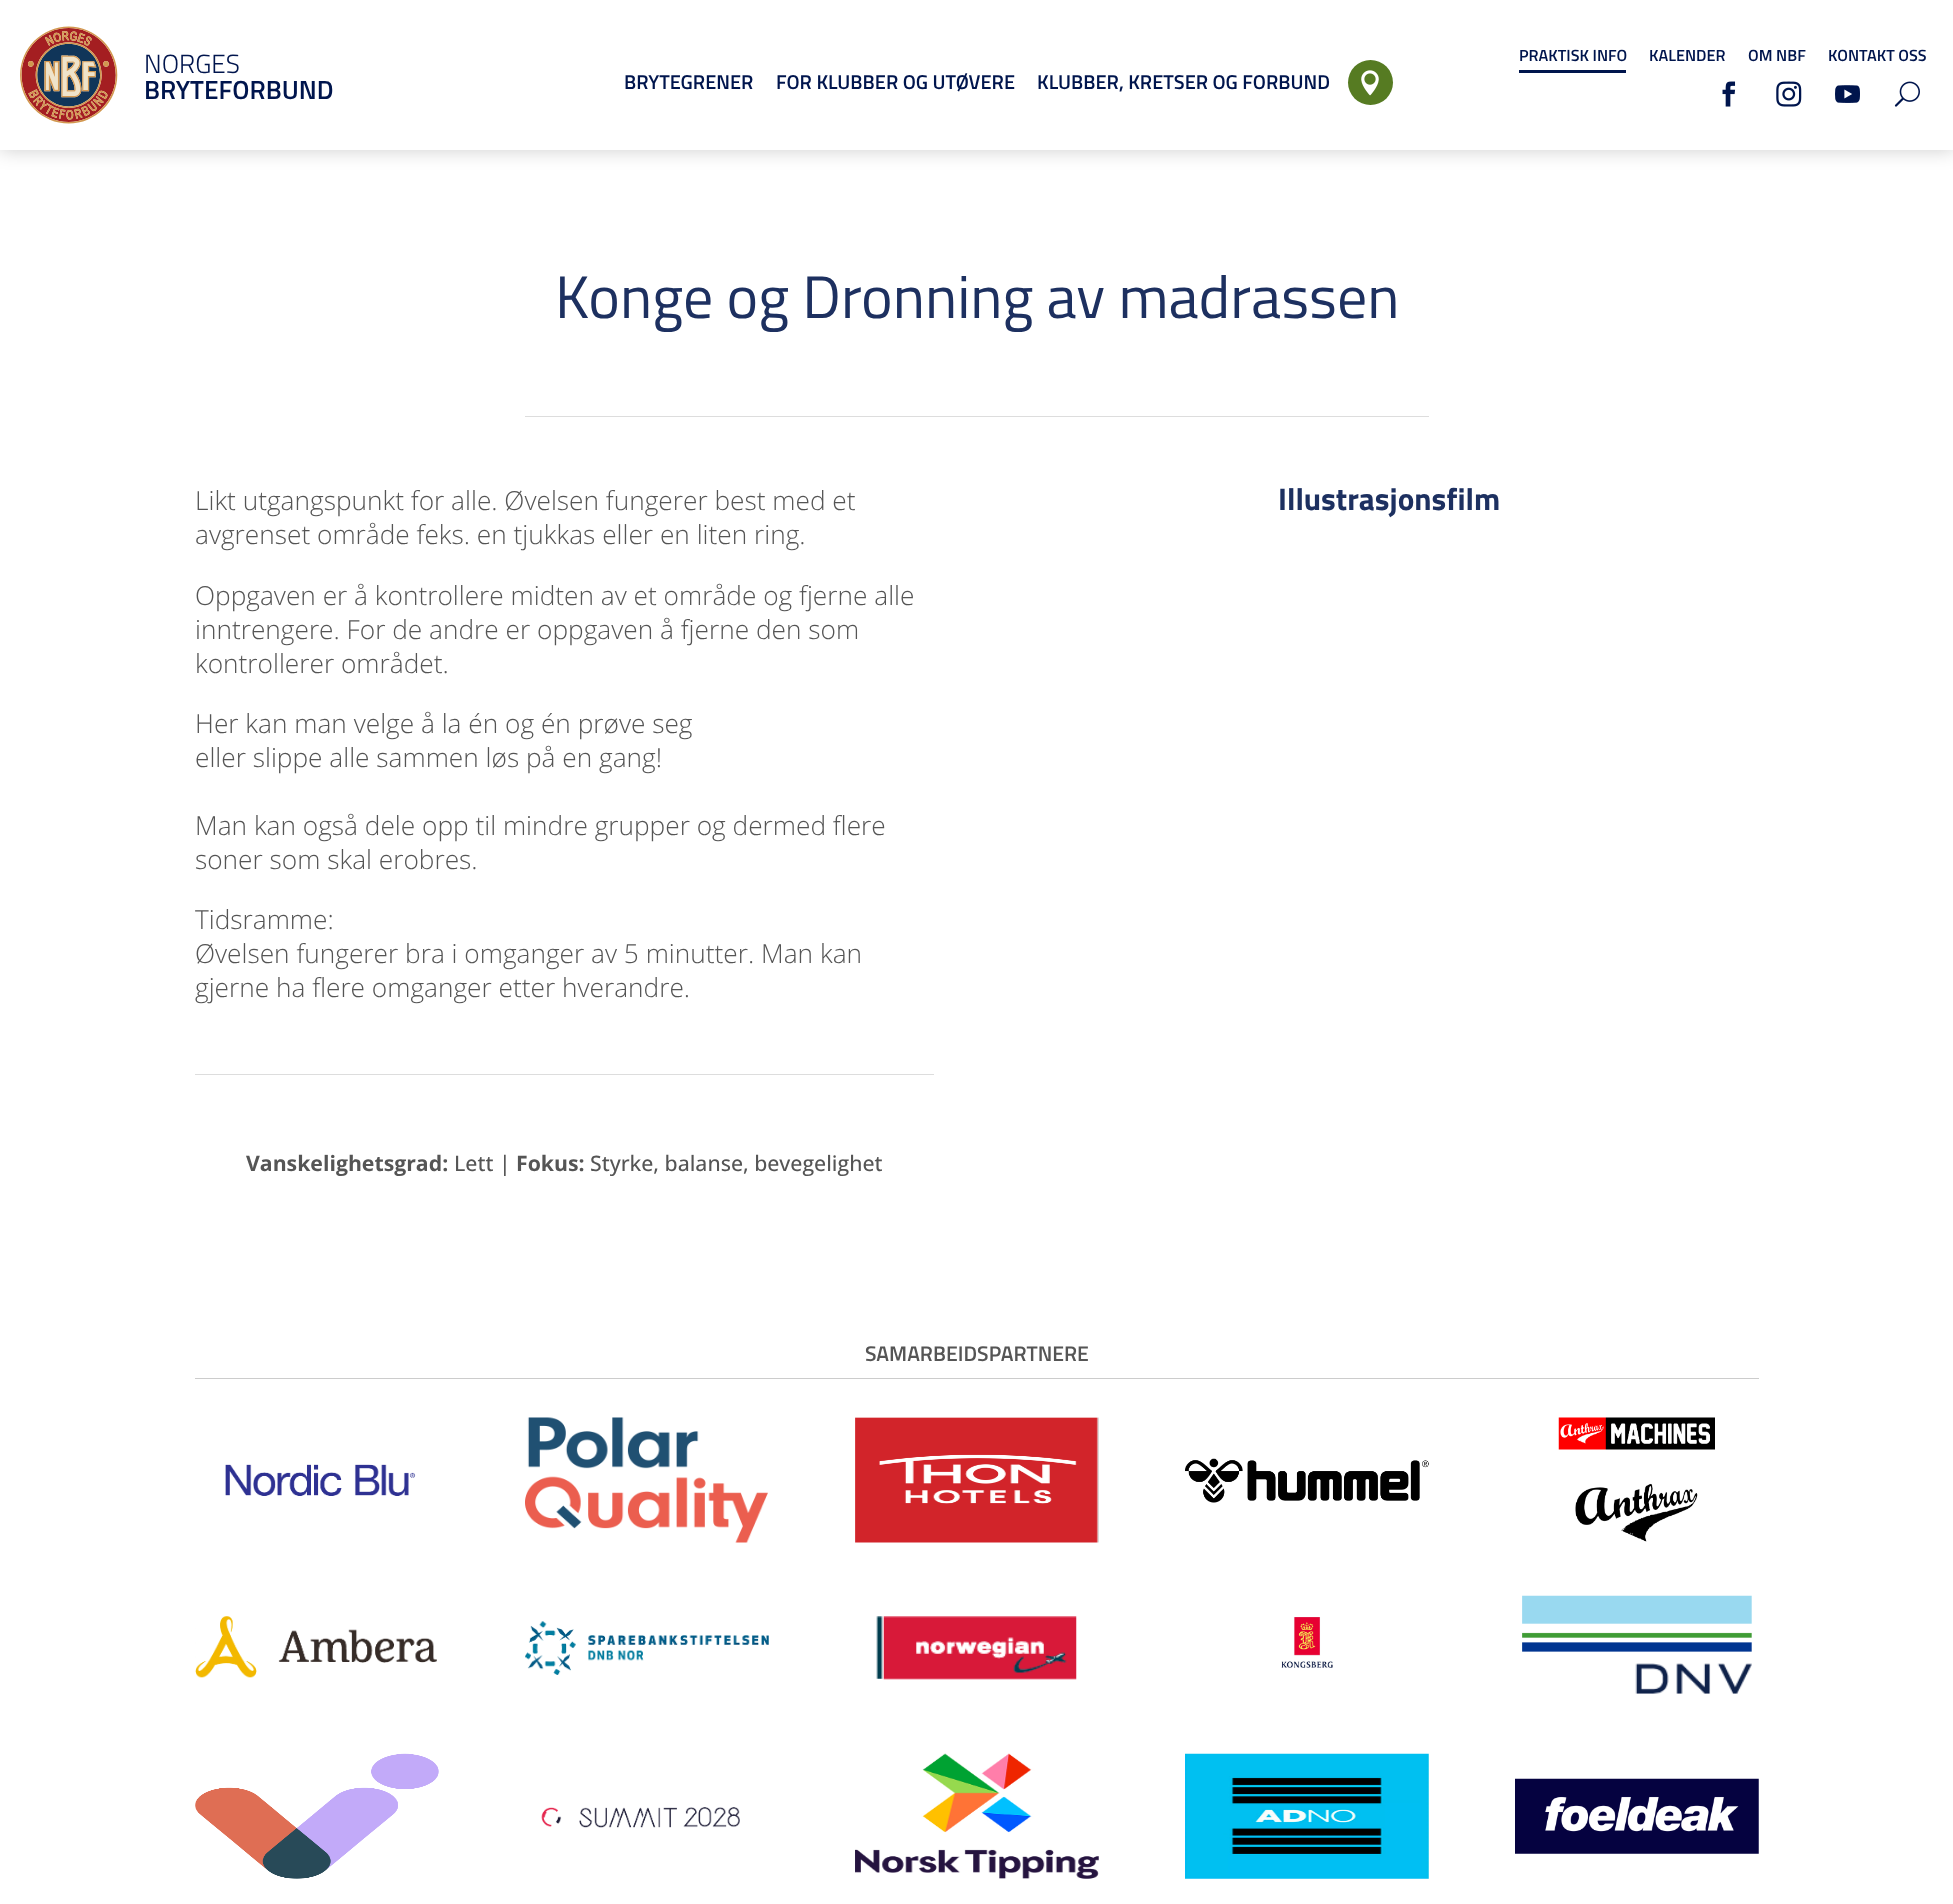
<svg xmlns="http://www.w3.org/2000/svg" xmlns:xlink="http://www.w3.org/1999/xlink" width="1953" height="1904" viewBox="0 0 1953 1904">
<style>
.cls-1{font:300 26.25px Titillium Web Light;fill:#00154d}
.cls-2{font:600 26.25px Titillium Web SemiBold;fill:#00154d}
.cls-3{font:600 16.25px Titillium Web SemiBold;fill:#00154d}
.cls-4{font:600 20px Titillium Web SemiBold;fill:#00154d}
.cls-5{font:60px Titillium Web;fill:#1d3060}
.cls-6{font:300 26.25px Open Sans;fill:#555555}
.cls-7{font:bold 21.25px Open Sans;fill:#555555}
.cls-8{font:500 21.25px Open Sans;fill:#555555}
.cls-9{font:bold 31.25px Titillium Web;fill:#1d3060}
.cls-10{font:600 21.25px Titillium Web SemiBold;fill:#555555}
</style>
<rect width="100%" height="100%" fill="#ffffff"/>
<rect fill="#000000" fill-opacity="0.2" filter="blur(9.5px)" x="0" y="0" width="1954" height="150"/>
<rect fill="#ffffff" x="0" y="0" width="1953" height="150"/>
<image xlink:href="image0.png" x="20" y="26" width="98" height="98"/>
<rect fill="#00154d" x="1519" y="70" width="107" height="3"/>
<circle fill="#567b22" cx="1370.5" cy="82.5" r="22.5"/>
<image xlink:href="image1.png" x="1361" y="70" width="18" height="26"/>
<image xlink:href="image2.png" x="1722" y="81" width="14" height="26"/>
<image xlink:href="image3.png" x="1776" y="81" width="26" height="26"/>
<image xlink:href="image4.png" x="1835" y="85" width="25" height="18"/>
<image xlink:href="image5.png" x="1894" y="81" width="26" height="26"/>
<rect fill="#dddddd" x="525" y="416" width="904" height="1"/>
<rect fill="#dddddd" x="195" y="1074" width="739" height="1"/>
<rect fill="#cccccc" x="195" y="1378" width="1564" height="1"/>
<image xlink:href="image6.png" x="225" y="1464" width="191" height="32"/>
<image xlink:href="image7.png" x="195" y="1616" width="242" height="62"/>
<image xlink:href="image8.png" x="195" y="1753" width="244" height="126"/>
<image xlink:href="image9.png" x="525" y="1417" width="243" height="126"/>
<image xlink:href="image10.png" x="525" y="1621" width="244" height="54"/>
<image xlink:href="image11.png" x="541" y="1807" width="199" height="21"/>
<image xlink:href="image12.png" x="855" y="1417" width="244" height="126"/>
<image xlink:href="image13.png" x="876" y="1616" width="201" height="64"/>
<image xlink:href="image14.png" x="855" y="1753" width="244" height="126"/>
<image xlink:href="image15.png" x="1185" y="1458" width="244" height="45"/>
<image xlink:href="image16.png" x="1281" y="1617" width="52" height="51"/>
<image xlink:href="image17.png" x="1185" y="1753" width="244" height="126"/>
<image xlink:href="image18.png" x="1558" y="1417" width="157" height="125"/>
<image xlink:href="image19.png" x="1522" y="1595" width="230" height="99"/>
<image xlink:href="image20.png" x="1515" y="1778" width="244" height="76"/>
<text class="cls-1" x="144" y="73">NORGES</text>
<text class="cls-2" x="144" y="99">BRYTEFORBUND</text>
<text class="cls-3" x="1519" y="61">PRAKTISK INFO</text>
<text class="cls-3" x="1649" y="61">KALENDER</text>
<text class="cls-3" x="1748" y="61">OM NBF</text>
<text class="cls-3" x="1828" y="61">KONTAKT OSS</text>
<text class="cls-4" x="624" y="89">BRYTEGRENER</text>
<text class="cls-4" x="776" y="89">FOR KLUBBER OG UTØVERE</text>
<text class="cls-4" x="1037" y="89">KLUBBER, KRETSER OG FORBUND</text>
<text class="cls-5" x="555" y="318">Konge og Dronning av madrassen</text>
<text class="cls-6"><tspan x="195" y="510">Likt utgangspunkt for alle. Øvelsen fungerer best med et</tspan><tspan x="195" y="544">avgrenset område feks. en tjukkas eller en liten ring.</tspan></text>
<text class="cls-6"><tspan x="195" y="605">Oppgaven er å kontrollere midten av et område og fjerne alle</tspan><tspan x="195" y="639">inntrengere. For de andre er oppgaven å fjerne den som</tspan><tspan x="195" y="673">kontrollerer området.</tspan></text>
<text class="cls-6"><tspan x="195" y="733">Her kan man velge å la én og én prøve seg</tspan><tspan x="195" y="767">eller slippe alle sammen løs på en gang!</tspan></text>
<text class="cls-6"><tspan x="195" y="835">Man kan også dele opp til mindre grupper og dermed flere</tspan><tspan x="195" y="869">soner som skal erobres.</tspan></text>
<text class="cls-6"><tspan x="195" y="929">Tidsramme:</tspan><tspan x="195" y="963">Øvelsen fungerer bra i omganger av 5 minutter. Man kan</tspan><tspan x="195" y="997">gjerne ha flere omganger etter hverandre.</tspan></text>
<text class="cls-7" x="246" y="1171">Vanskelighetsgrad:</text>
<text class="cls-8" x="454" y="1171">Lett |</text>
<text class="cls-7" x="516" y="1171">Fokus:</text>
<text class="cls-8" x="590" y="1171">Styrke, balanse, bevegelighet</text>
<text class="cls-9" x="1278" y="510">Illustrasjonsfilm</text>
<text class="cls-10" x="865" y="1361">SAMARBEIDSPARTNERE</text>
</svg>
